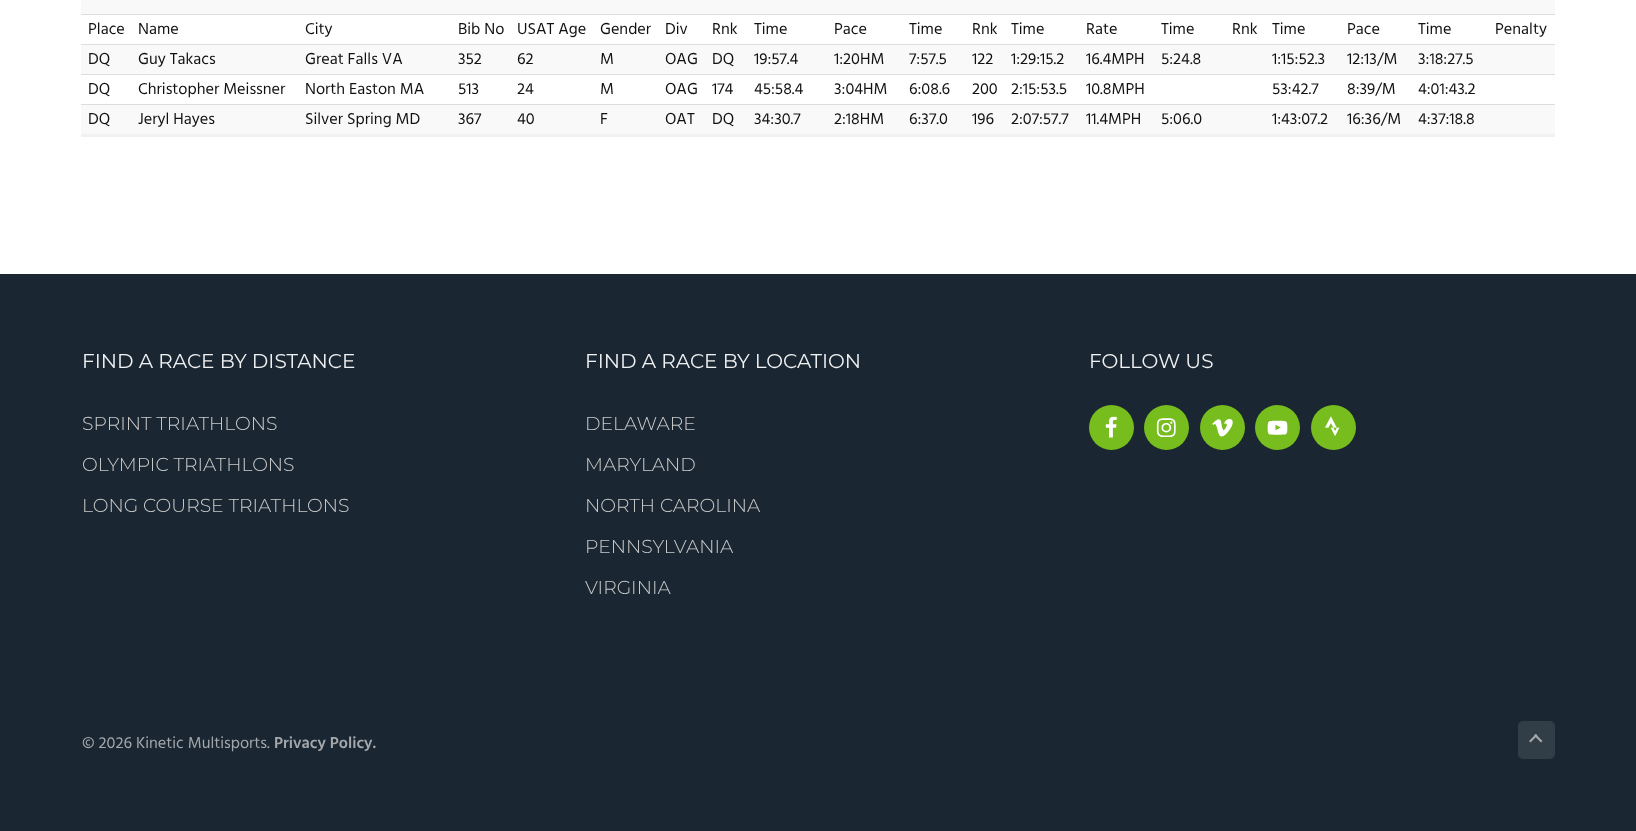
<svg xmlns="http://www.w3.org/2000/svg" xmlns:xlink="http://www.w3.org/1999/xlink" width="1636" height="831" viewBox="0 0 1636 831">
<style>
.cls-1{font:16.25px Hind;fill:#111111}
.cls-2{font:20px Montserrat;fill:#f0f1f2}
.cls-3{font:300 18.75px Montserrat;fill:#cbcbcb}
.cls-4{font:16.25px Hind;fill:#a4a8ac}
.cls-5{font:600 16.25px Hind;fill:#a4a8ac}
</style>
<rect width="100%" height="100%" fill="#ffffff"/>
<rect fill="#f0f1f2" x="81" y="134" width="1474" height="3"/>
<rect fill="#f9f9f9" x="81" y="0" width="1474" height="14"/>
<rect fill="#dddddd" x="81" y="14" width="1474" height="1"/>
<rect fill="#dddddd" x="81" y="44" width="1474" height="1"/>
<rect fill="#f9f9f9" x="81" y="45" width="1474" height="29"/>
<rect fill="#dddddd" x="81" y="74" width="1474" height="1"/>
<rect fill="#dddddd" x="81" y="104" width="1474" height="1"/>
<rect fill="#f9f9f9" x="81" y="105" width="1474" height="29"/>
<rect fill="#1a2732" x="0" y="274" width="1636" height="557"/>
<circle fill="#76bd1d" cx="1111.5" cy="427.5" r="22.5"/>
<image xlink:href="image0.png" x="1105" y="416" width="12" height="22"/>
<circle fill="#76bd1d" cx="1166.5" cy="427.5" r="22.5"/>
<image xlink:href="image1.png" x="1156" y="418" width="20" height="19"/>
<circle fill="#76bd1d" cx="1222.5" cy="427.5" r="22.5"/>
<image xlink:href="image2.png" x="1212" y="419" width="21" height="18"/>
<circle fill="#76bd1d" cx="1277.5" cy="427.5" r="22.5"/>
<image xlink:href="image3.png" x="1267" y="420" width="21" height="15"/>
<circle fill="#76bd1d" cx="1333.5" cy="427.5" r="22.5"/>
<image xlink:href="image4.png" x="1325" y="416" width="15" height="21"/>
<rect fill="#313d47" x="1518" y="721" width="37" height="38" rx="5"/>
<path fill="#a4a8ac" d="M1529 741L1536 734L1537.5 735.5L1530.5 742.5Z"/>
<path fill="#a4a8ac" d="M1535.5 734L1542.5 741L1541 742.5L1534 735.5Z"/>
<text class="cls-1" x="88" y="34">Place</text>
<text class="cls-1" x="138" y="34">Name</text>
<text class="cls-1" x="305" y="34">City</text>
<text class="cls-1" x="458" y="34">Bib No</text>
<text class="cls-1" x="517" y="34">USAT Age</text>
<text class="cls-1" x="600" y="34">Gender</text>
<text class="cls-1" x="665" y="34">Div</text>
<text class="cls-1" x="712" y="34">Rnk</text>
<text class="cls-1" x="754" y="34">Time</text>
<text class="cls-1" x="834" y="34">Pace</text>
<text class="cls-1" x="909" y="34">Time</text>
<text class="cls-1" x="972" y="34">Rnk</text>
<text class="cls-1" x="1011" y="34">Time</text>
<text class="cls-1" x="1086" y="34">Rate</text>
<text class="cls-1" x="1161" y="34">Time</text>
<text class="cls-1" x="1232" y="34">Rnk</text>
<text class="cls-1" x="1272" y="34">Time</text>
<text class="cls-1" x="1347" y="34">Pace</text>
<text class="cls-1" x="1418" y="34">Time</text>
<text class="cls-1" x="1495" y="34">Penalty</text>
<text class="cls-1" x="88" y="64">DQ</text>
<text class="cls-1" x="138" y="64">Guy Takacs</text>
<text class="cls-1" x="305" y="64">Great Falls VA</text>
<text class="cls-1" x="458" y="64">352</text>
<text class="cls-1" x="517" y="64">62</text>
<text class="cls-1" x="600" y="64">M</text>
<text class="cls-1" x="665" y="64">OAG</text>
<text class="cls-1" x="712" y="64">DQ</text>
<text class="cls-1" x="754" y="64">19:57.4</text>
<text class="cls-1" x="834" y="64">1:20HM</text>
<text class="cls-1" x="909" y="64">7:57.5</text>
<text class="cls-1" x="972" y="64">122</text>
<text class="cls-1" x="1011" y="64">1:29:15.2</text>
<text class="cls-1" x="1086" y="64">16.4MPH</text>
<text class="cls-1" x="1161" y="64">5:24.8</text>
<text class="cls-1" x="1272" y="64">1:15:52.3</text>
<text class="cls-1" x="1347" y="64">12:13/M</text>
<text class="cls-1" x="1418" y="64">3:18:27.5</text>
<text class="cls-1" x="88" y="94">DQ</text>
<text class="cls-1" x="138" y="94">Christopher Meissner</text>
<text class="cls-1" x="305" y="94">North Easton MA</text>
<text class="cls-1" x="458" y="94">513</text>
<text class="cls-1" x="517" y="94">24</text>
<text class="cls-1" x="600" y="94">M</text>
<text class="cls-1" x="665" y="94">OAG</text>
<text class="cls-1" x="712" y="94">174</text>
<text class="cls-1" x="754" y="94">45:58.4</text>
<text class="cls-1" x="834" y="94">3:04HM</text>
<text class="cls-1" x="909" y="94">6:08.6</text>
<text class="cls-1" x="972" y="94">200</text>
<text class="cls-1" x="1011" y="94">2:15:53.5</text>
<text class="cls-1" x="1086" y="94">10.8MPH</text>
<text class="cls-1" x="1272" y="94">53:42.7</text>
<text class="cls-1" x="1347" y="94">8:39/M</text>
<text class="cls-1" x="1418" y="94">4:01:43.2</text>
<text class="cls-1" x="88" y="124">DQ</text>
<text class="cls-1" x="138" y="124">Jeryl Hayes</text>
<text class="cls-1" x="305" y="124">Silver Spring MD</text>
<text class="cls-1" x="458" y="124">367</text>
<text class="cls-1" x="517" y="124">40</text>
<text class="cls-1" x="600" y="124">F</text>
<text class="cls-1" x="665" y="124">OAT</text>
<text class="cls-1" x="712" y="124">DQ</text>
<text class="cls-1" x="754" y="124">34:30.7</text>
<text class="cls-1" x="834" y="124">2:18HM</text>
<text class="cls-1" x="909" y="124">6:37.0</text>
<text class="cls-1" x="972" y="124">196</text>
<text class="cls-1" x="1011" y="124">2:07:57.7</text>
<text class="cls-1" x="1086" y="124">11.4MPH</text>
<text class="cls-1" x="1161" y="124">5:06.0</text>
<text class="cls-1" x="1272" y="124">1:43:07.2</text>
<text class="cls-1" x="1347" y="124">16:36/M</text>
<text class="cls-1" x="1418" y="124">4:37:18.8</text>
<text class="cls-2" x="82" y="368">FIND A RACE BY DISTANCE</text>
<text class="cls-3" x="82" y="430">SPRINT TRIATHLONS</text>
<text class="cls-3" x="82" y="471">OLYMPIC TRIATHLONS</text>
<text class="cls-3" x="82" y="512">LONG COURSE TRIATHLONS</text>
<text class="cls-2" x="585" y="368">FIND A RACE BY LOCATION</text>
<text class="cls-3" x="585" y="430">DELAWARE</text>
<text class="cls-3" x="585" y="471">MARYLAND</text>
<text class="cls-3" x="585" y="512">NORTH CAROLINA</text>
<text class="cls-3" x="585" y="553">PENNSYLVANIA</text>
<text class="cls-3" x="585" y="594">VIRGINIA</text>
<text class="cls-2" x="1089" y="368">FOLLOW US</text>
<text class="cls-4" x="82" y="748">© 2026 Kinetic Multisports.</text>
<text class="cls-5" x="274" y="748">Privacy Policy.</text>
</svg>
